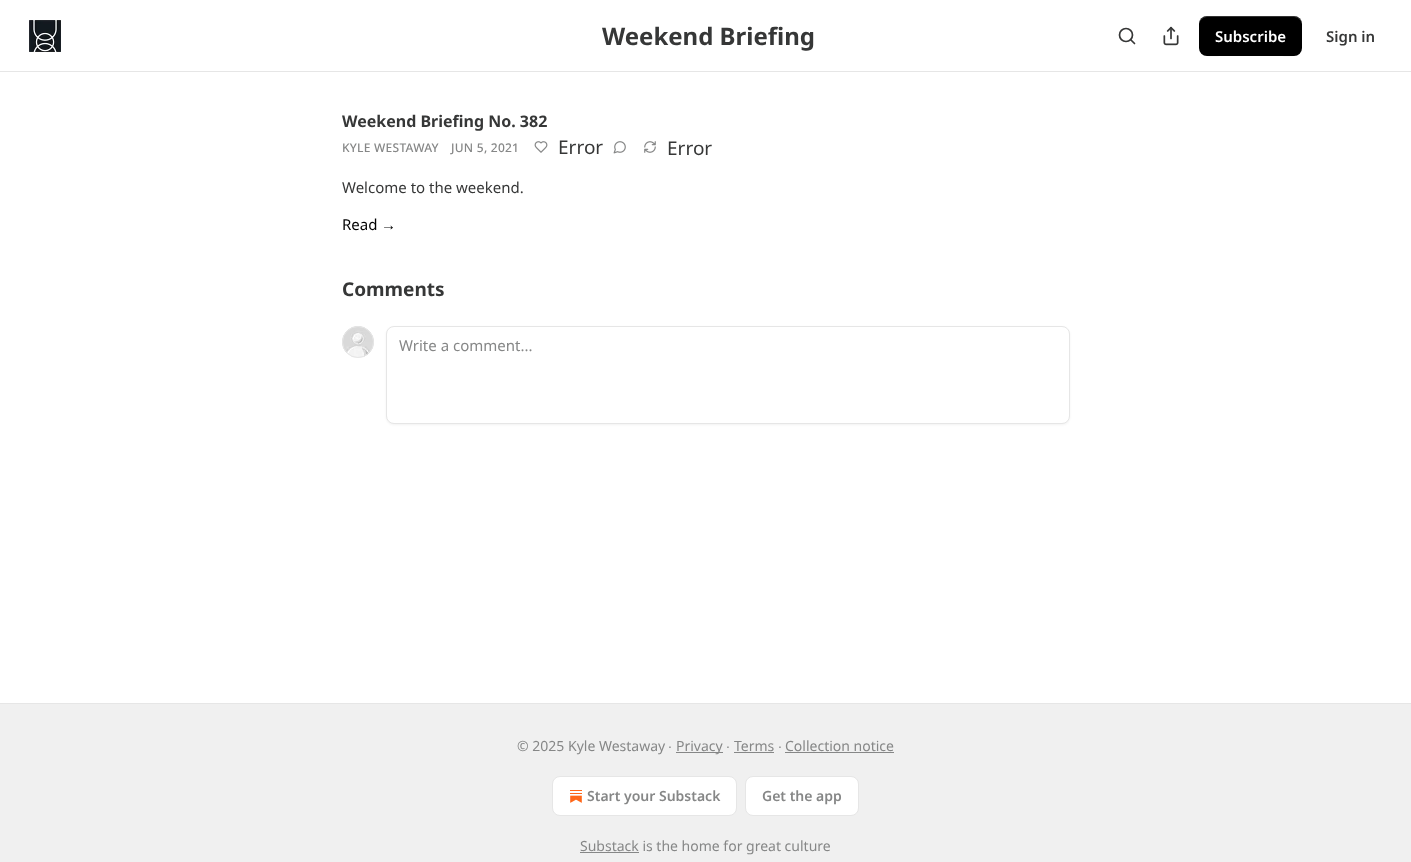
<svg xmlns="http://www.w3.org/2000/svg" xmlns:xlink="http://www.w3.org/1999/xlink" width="1411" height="862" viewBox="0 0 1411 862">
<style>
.cls-1{font:bold 24px Noto Sans;fill:#363737}
.cls-2{font:600 15px Noto Sans;fill:#ffffff}
.cls-3{font:600 15px Noto Sans;fill:#363737}
.cls-4{font:bold 16px Noto Sans;fill:#363737}
.cls-5{font:500 12px Noto Sans;letter-spacing:0.25px;fill:#868787}
.cls-6{font:19px Noto Sans;fill:#363737}
.cls-7{font:15px Noto Sans;fill:#363737}
.cls-8{font:15px Noto Sans;fill:#000000}
.cls-9{font:15px Liberation Sans;fill:#000000}
.cls-10{font:bold 19px Noto Sans;fill:#363737}
.cls-11{font:15px Noto Sans;fill:#868787}
.cls-12{font:14px Noto Sans;fill:#868787}
.cls-13{font:14px Liberation Sans;fill:#868787}
.cls-14{font:600 14px Noto Sans;fill:#868787}
</style>
<defs>
<clipPath id="clip1"><rect x="602" y="20" width="213" height="32"/></clipPath>
</defs>
<rect width="100%" height="100%" fill="#ffffff"/>
<rect fill="#e6e6e6" x="0" y="71" width="1411" height="1"/>
<image xlink:href="image0.png" x="29" y="20" width="32" height="32"/>
<circle fill="none" stroke="#363737" stroke-width="1.7" cx="1126" cy="35" r="6.5"/>
<path fill="none" stroke="#363737" stroke-width="1.7" stroke-linecap="round" stroke-linejoin="round" d="M1134.5 43.5L1131 40"/>
<image xlink:href="image1.png" x="1163" y="26" width="16" height="20"/>
<rect fill="#000000" x="1199" y="16" width="103" height="40" rx="8"/>
<path fill="#000000" fill-opacity="0.1" d="M1199 47C1199 59 1213 56 1222 56H1280C1288 56 1302 59 1302 47C1302 51 1298 55 1294 55H1207C1203 55 1199 51 1199 47Z"/>
<path fill="#ffffff" fill-opacity="0.2" d="M1207 17H1294C1298 17 1302 21 1302 25C1302 13 1288 16 1280 16H1222C1213 16 1199 13 1199 25C1199 21 1203 17 1207 17Z"/>
<image xlink:href="image2.png" x="534" y="141" width="14" height="12"/>
<image xlink:href="image3.png" x="613" y="141" width="13" height="13"/>
<image xlink:href="image4.png" x="644" y="141" width="12" height="12"/>
<circle fill="none" stroke="#e6e6e6" cx="358" cy="342" r="15.5"/>
<image xlink:href="image5.png" x="342" y="326" width="32" height="32"/>
<circle fill="none" stroke="#e6e6e6" cx="358" cy="342" r="15.5"/>
<rect fill="#000000" fill-opacity="0.05" filter="blur(1px)" x="386" y="327" width="684" height="98" rx="8"/>
<rect fill="#ffffff" stroke="#e6e6e6" x="386.5" y="326.5" width="683" height="97" rx="7.5"/>
<rect fill="#f0f0f0" x="0" y="704" width="1411" height="158"/>
<rect fill="#e6e6e6" x="0" y="703" width="1411" height="1"/>
<rect fill="#868787" x="676" y="752" width="47" height="1"/>
<rect fill="#868787" x="734" y="752" width="40" height="1"/>
<rect fill="#868787" x="785" y="752" width="109" height="1"/>
<rect fill="#ffffff" stroke="#e6e6e6" x="552.5" y="776.5" width="184" height="39" rx="7.5"/>
<image xlink:href="image6.png" x="570" y="790" width="12" height="13"/>
<rect fill="#ffffff" stroke="#e6e6e6" x="745.5" y="776.5" width="113" height="39" rx="7.5"/>
<rect fill="#868787" x="580" y="852" width="59" height="1"/>
<g clip-path="url(#clip1)">
<text class="cls-1" x="602" y="45">Weekend Briefing</text>
</g>
<text class="cls-2" x="1215" y="42">Subscribe</text>
<text class="cls-3" x="1326" y="42">Sign in</text>
<text class="cls-4" x="342" y="127">Weekend Briefing No. 382</text>
<text class="cls-5" x="342" y="152">KYLE WESTAWAY</text>
<text class="cls-5" x="451" y="152">JUN 5, 2021</text>
<text class="cls-6" x="558" y="154">Error</text>
<text class="cls-6" x="667" y="155">Error</text>
<text class="cls-7" x="342" y="193">Welcome to the weekend.</text>
<text class="cls-8" x="342" y="230">Read</text>
<text class="cls-9" x="381" y="230">→</text>
<text class="cls-10" x="342" y="296">Comments</text>
<text class="cls-11" x="399" y="351">Write a comment...</text>
<text class="cls-12" x="517" y="751">© 2025 Kyle Westaway</text>
<text class="cls-13" x="668" y="751">∙</text>
<text class="cls-12" x="676" y="751">Privacy</text>
<text class="cls-13" x="726" y="751">∙</text>
<text class="cls-12" x="734" y="751">Terms</text>
<text class="cls-13" x="778" y="751">∙</text>
<text class="cls-12" x="785" y="751">Collection notice</text>
<text class="cls-14" x="587" y="801">Start your Substack</text>
<text class="cls-14" x="762" y="801">Get the app</text>
<text class="cls-12" x="580" y="851">Substack is the home for great culture</text>
</svg>
